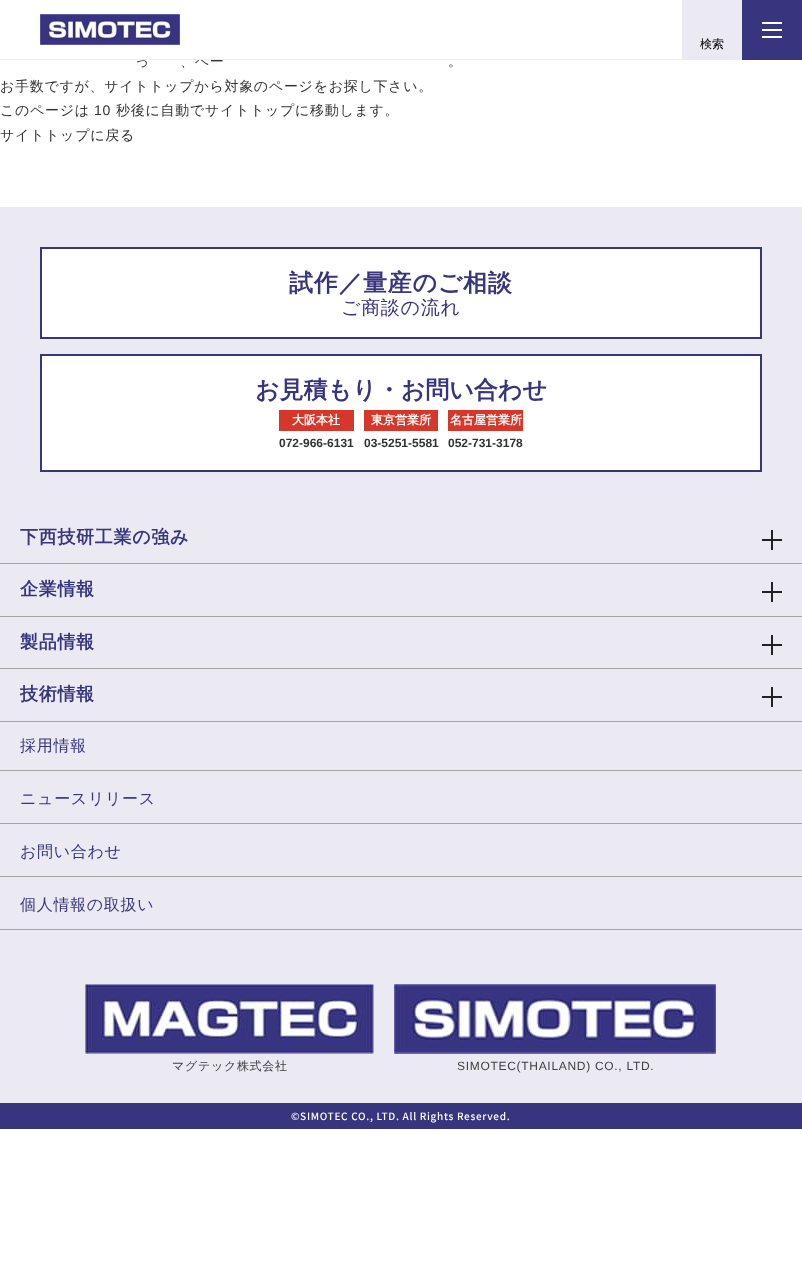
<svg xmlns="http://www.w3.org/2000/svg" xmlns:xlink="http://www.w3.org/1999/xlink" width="802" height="1262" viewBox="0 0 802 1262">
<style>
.cls-1{font:500 12px WenQuanYi Zen Hei;fill:#000000}
.cls-2{font:500 14px WenQuanYi Zen Hei;letter-spacing:0.7px;fill:#333333}
.cls-3{font:14px Liberation Sans;letter-spacing:0.7px;fill:#333333}
.cls-4{font:bold 24px WenQuanYi Zen Hei;letter-spacing:0.7px;fill:#37357d}
.cls-5{font:500 19px WenQuanYi Zen Hei;letter-spacing:0.7px;fill:#37357d}
.cls-6{font:bold 24px WenQuanYi Zen Hei;fill:#37357d}
.cls-7{font:bold 12px WenQuanYi Zen Hei;fill:#ffffff}
.cls-8{font:bold 12px Liberation Sans;fill:#333333}
.cls-9{font:bold 18px WenQuanYi Zen Hei;letter-spacing:0.7px;fill:#37357d}
.cls-10{font:500 16px WenQuanYi Zen Hei;letter-spacing:0.7px;fill:#37357d}
.cls-11{font:500 12px WenQuanYi Zen Hei;letter-spacing:0.7px;fill:#404040}
.cls-12{font:12px Liberation Sans;letter-spacing:0.7px;fill:#404040}
.cls-13{font:500 10px Noto Sans JP;letter-spacing:0.7px;fill:#ffffff}
</style>
<rect width="100%" height="100%" fill="#ffffff"/>
<image xlink:href="image0.png" x="40" y="14" width="140" height="31"/>
<rect fill="#ebeaf2" x="682" y="0" width="60" height="60"/>
<rect fill="#37357d" x="742" y="0" width="60" height="60"/>
<rect fill="#ffffff" x="762" y="22" width="20" height="2"/>
<rect fill="#ffffff" x="762" y="29" width="20" height="2"/>
<rect fill="#ffffff" x="762" y="36" width="20" height="2"/>
<rect fill="#ebeaf2" x="0" y="207" width="802" height="896"/>
<rect fill="#ffffff" stroke="#37357d" stroke-width="2" x="41" y="248" width="720" height="90"/>
<rect fill="#ffffff" stroke="#37357d" stroke-width="2" x="41" y="355" width="720" height="116"/>
<rect fill="#d5382a" x="279" y="410" width="75" height="21"/>
<rect fill="#d5382a" x="364" y="410" width="74" height="21"/>
<rect fill="#d5382a" x="448" y="410" width="75" height="21"/>
<rect fill="#a5a5a5" x="0" y="563" width="802" height="1"/>
<rect fill="#222222" x="762" y="539" width="20" height="2"/>
<rect fill="#222222" x="771" y="530" width="2" height="20"/>
<rect fill="#a5a5a5" x="0" y="616" width="802" height="1"/>
<rect fill="#222222" x="762" y="591" width="20" height="2"/>
<rect fill="#222222" x="771" y="582" width="2" height="20"/>
<rect fill="#a5a5a5" x="0" y="668" width="802" height="1"/>
<rect fill="#222222" x="762" y="644" width="20" height="2"/>
<rect fill="#222222" x="771" y="635" width="2" height="20"/>
<rect fill="#a5a5a5" x="0" y="721" width="802" height="1"/>
<rect fill="#222222" x="762" y="696" width="20" height="2"/>
<rect fill="#222222" x="771" y="687" width="2" height="20"/>
<rect fill="#a5a5a5" x="0" y="770" width="802" height="1"/>
<rect fill="#a5a5a5" x="0" y="823" width="802" height="1"/>
<rect fill="#a5a5a5" x="0" y="876" width="802" height="1"/>
<rect fill="#a5a5a5" x="0" y="929" width="802" height="1"/>
<image xlink:href="image1.png" x="85" y="984" width="289" height="70"/>
<image xlink:href="image2.png" x="394" y="984" width="322" height="70"/>
<rect fill="#37357d" x="0" y="1103" width="802" height="26"/>
<text class="cls-1" x="700" y="48">検索</text>
<text class="cls-2" x="135" y="66">っ</text>
<text class="cls-2" x="180" y="66">、ペー</text>
<rect fill="#eeeeee" x="0" y="59" width="682" height="1"/>
<rect fill="#ffffff" x="198" y="56" width="8" height="3"/>
<text class="cls-2" x="448" y="66">。</text>
<text class="cls-2"><tspan x="0" y="91">お手数ですが、サイトトップから対象のページをお探し下さい。</tspan><tspan x="0" y="115">このページは</tspan></text>
<text class="cls-3" x="94" y="115">10</text>
<text class="cls-2" x="116" y="115">秒後に自動でサイトトップに移動します。</text>
<text class="cls-2" x="0" y="140">サイトトップに戻る</text>
<text class="cls-4" x="289" y="291">試作／量産のご相談</text>
<text class="cls-5" x="341" y="314">ご商談の流れ</text>
<text class="cls-6" x="255" y="398">お見積もり・お問い合わせ</text>
<text class="cls-7" x="292" y="424">大阪本社</text>
<text class="cls-8" x="279" y="447">072-966-6131</text>
<text class="cls-7" x="371" y="424">東京営業所</text>
<text class="cls-8" x="364" y="447">03-5251-5581</text>
<text class="cls-7" x="450" y="424">名古屋営業所</text>
<text class="cls-8" x="448" y="447">052-731-3178</text>
<text class="cls-9" x="20" y="543">下西技研工業の強み</text>
<text class="cls-9" x="20" y="595">企業情報</text>
<text class="cls-9" x="20" y="648">製品情報</text>
<text class="cls-9" x="20" y="700">技術情報</text>
<text class="cls-10" x="20" y="751">採用情報</text>
<text class="cls-10" x="20" y="804">ニュースリリース</text>
<text class="cls-10" x="20" y="857">お問い合わせ</text>
<text class="cls-10" x="20" y="910">個人情報の取扱い</text>
<text class="cls-11" x="172" y="1070">マグテック株式会社</text>
<text class="cls-12" x="457" y="1070">SIMOTEC(THAILAND) CO., LTD.</text>
<text class="cls-13" x="291" y="1120">©SIMOTEC CO., LTD. All Rights Reserved.</text>
</svg>
